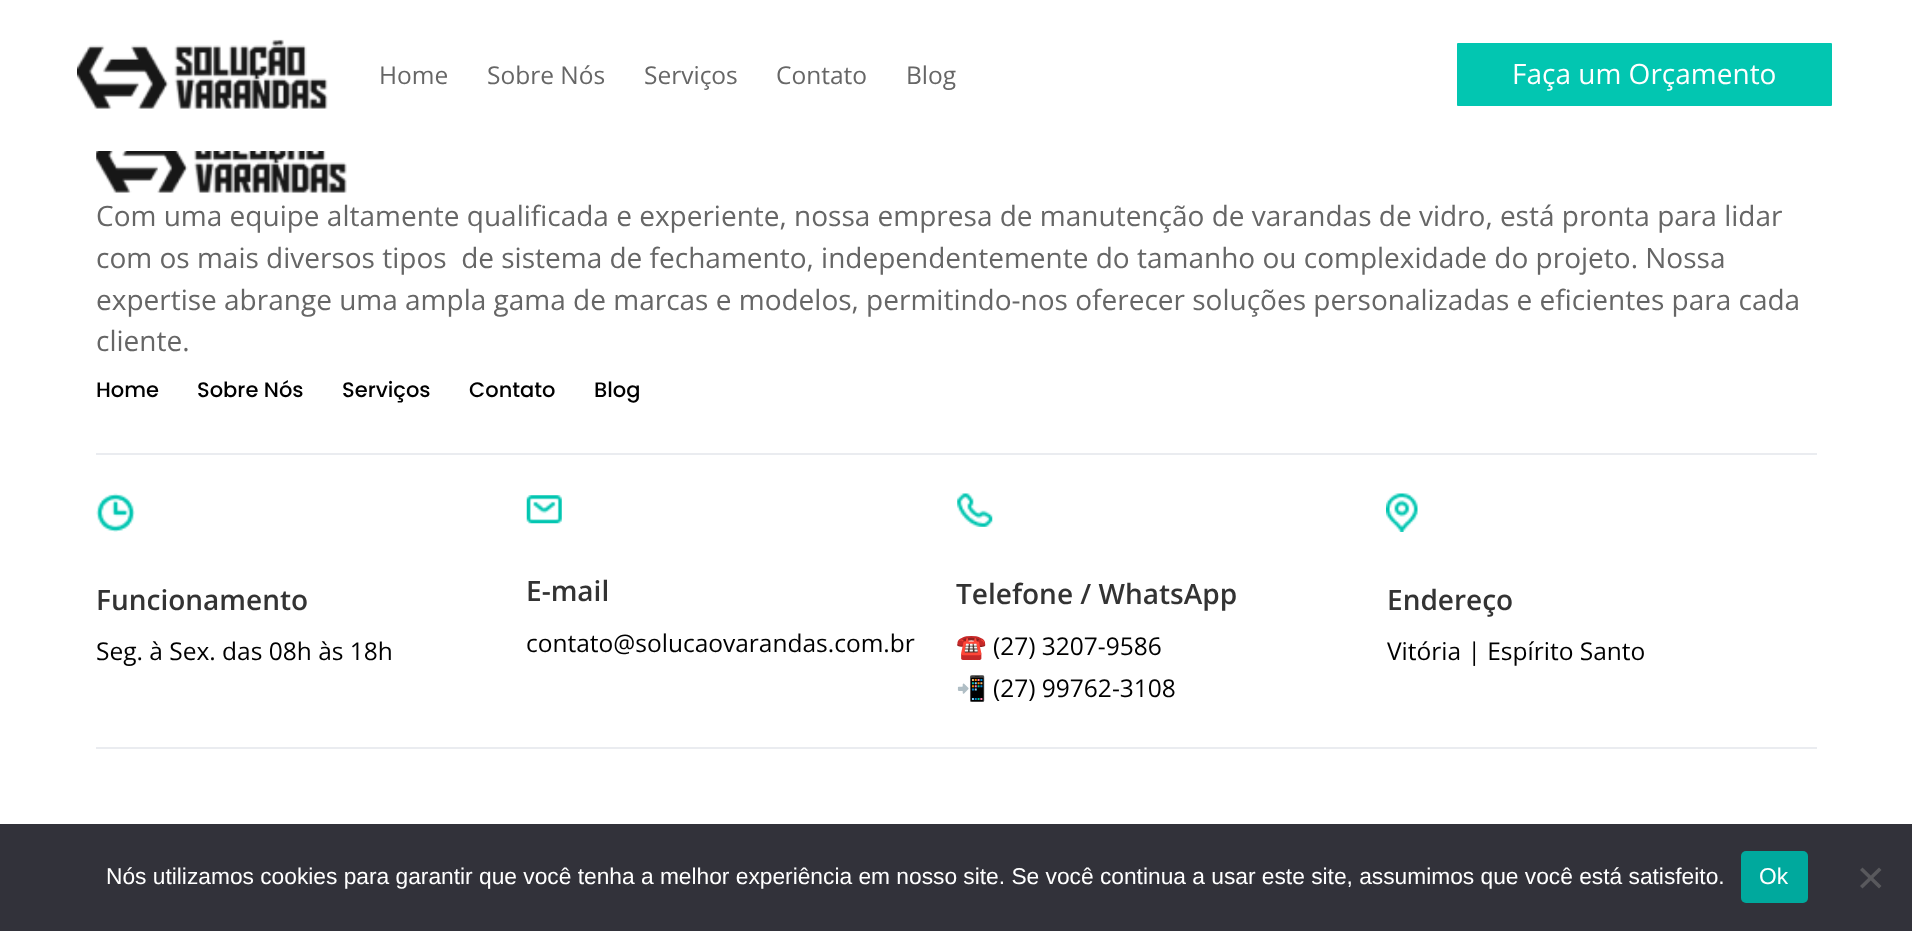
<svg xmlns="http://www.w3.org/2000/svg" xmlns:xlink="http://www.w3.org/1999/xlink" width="1912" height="931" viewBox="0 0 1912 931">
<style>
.cls-1{font:24.5px Open Sans;fill:#666666}
.cls-2{font:28px Open Sans;fill:#ffffff}
.cls-3{font:28px Open Sans;fill:#666666}
.cls-4{font:500 21px Poppins;fill:#000000}
.cls-5{font:600 28px Open Sans;fill:#333333}
.cls-6{font:24.5px Open Sans;fill:#000000}
.cls-7{font:24.5px Noto Color Emoji;fill:#666666}
.cls-8{font:22.75px Liberation Sans;fill:#ffffff}
</style>
<rect width="100%" height="100%" fill="#ffffff"/>
<image xlink:href="image0.png" x="77" y="39" width="251" height="70"/>
<rect fill="#02c6b1" stroke="#ffffff" stroke-width="4" x="1455" y="41" width="379" height="67" rx="3"/>
<rect fill="#eaecf0" x="96" y="453" width="1721" height="2"/>
<image xlink:href="image1.png" x="96" y="151" width="251" height="42"/>
<rect fill="#eaecf0" x="96" y="747" width="1721" height="2"/>
<image xlink:href="image2.png" x="96" y="493" width="39" height="39"/>
<image xlink:href="image3.png" x="526" y="495" width="36" height="29"/>
<image xlink:href="image4.png" x="957" y="493" width="36" height="34"/>
<image xlink:href="image5.png" x="1386" y="493" width="32" height="39"/>
<rect fill="#32323a" x="0" y="824" width="1912" height="107"/>
<rect fill="#00a99d" x="1741" y="851" width="67" height="52" rx="5"/>
<path fill="#59595d" d="M1879 867.5L1881.5 870L1862.5 888.5L1860 886Z"/>
<path fill="#59595d" d="M1860 870L1862.5 867.5L1881.5 886L1879 888.5Z"/>
<text class="cls-1" x="379" y="84">Home</text>
<text class="cls-1" x="487" y="84">Sobre Nós</text>
<text class="cls-1" x="644" y="84">Serviços</text>
<text class="cls-1" x="776" y="84">Contato</text>
<text class="cls-1" x="906" y="84">Blog</text>
<text class="cls-2" x="1512" y="84">Faça um Orçamento</text>
<text class="cls-3" xml:space="preserve"><tspan x="96" y="226">Com uma equipe altamente qualificada e experiente, nossa empresa de manutenção de varandas de vidro, está pronta para lidar</tspan><tspan x="96" y="268">com os mais diversos tipos  de sistema de fechamento, independentemente do tamanho ou complexidade do projeto. Nossa</tspan><tspan x="96" y="310">expertise abrange uma ampla gama de marcas e modelos, permitindo-nos oferecer soluções personalizadas e eficientes para cada</tspan><tspan x="96" y="351">cliente.</tspan></text>
<text class="cls-4" x="96" y="397">Home</text>
<text class="cls-4" x="197" y="397">Sobre Nós</text>
<text class="cls-4" x="342" y="397">Serviços</text>
<text class="cls-4" x="469" y="397">Contato</text>
<text class="cls-4" x="594" y="397">Blog</text>
<text class="cls-5" x="96" y="610">Funcionamento</text>
<text class="cls-6" x="96" y="660">Seg. à Sex. das 08h às 18h</text>
<text class="cls-5" x="526" y="601">E-mail</text>
<text class="cls-6" x="526" y="652">contato@solucaovarandas.com.br</text>
<text class="cls-5" x="956" y="604">Telefone / WhatsApp</text>
<text class="cls-7" x="956" y="655">☎️</text>
<text class="cls-6" x="993" y="655">(27) 3207-9586</text>
<text class="cls-7" x="956" y="697">📲</text>
<text class="cls-6" x="993" y="697">(27) 99762-3108</text>
<text class="cls-5" x="1387" y="610">Endereço</text>
<text class="cls-6" x="1387" y="660">Vitória | Espírito Santo</text>
<text class="cls-8" x="106" y="884">Nós utilizamos cookies para garantir que você tenha a melhor experiência em nosso site. Se você continua a usar este site, assumimos que você está satisfeito.</text>
<text class="cls-8" x="1759" y="884">Ok</text>
</svg>
